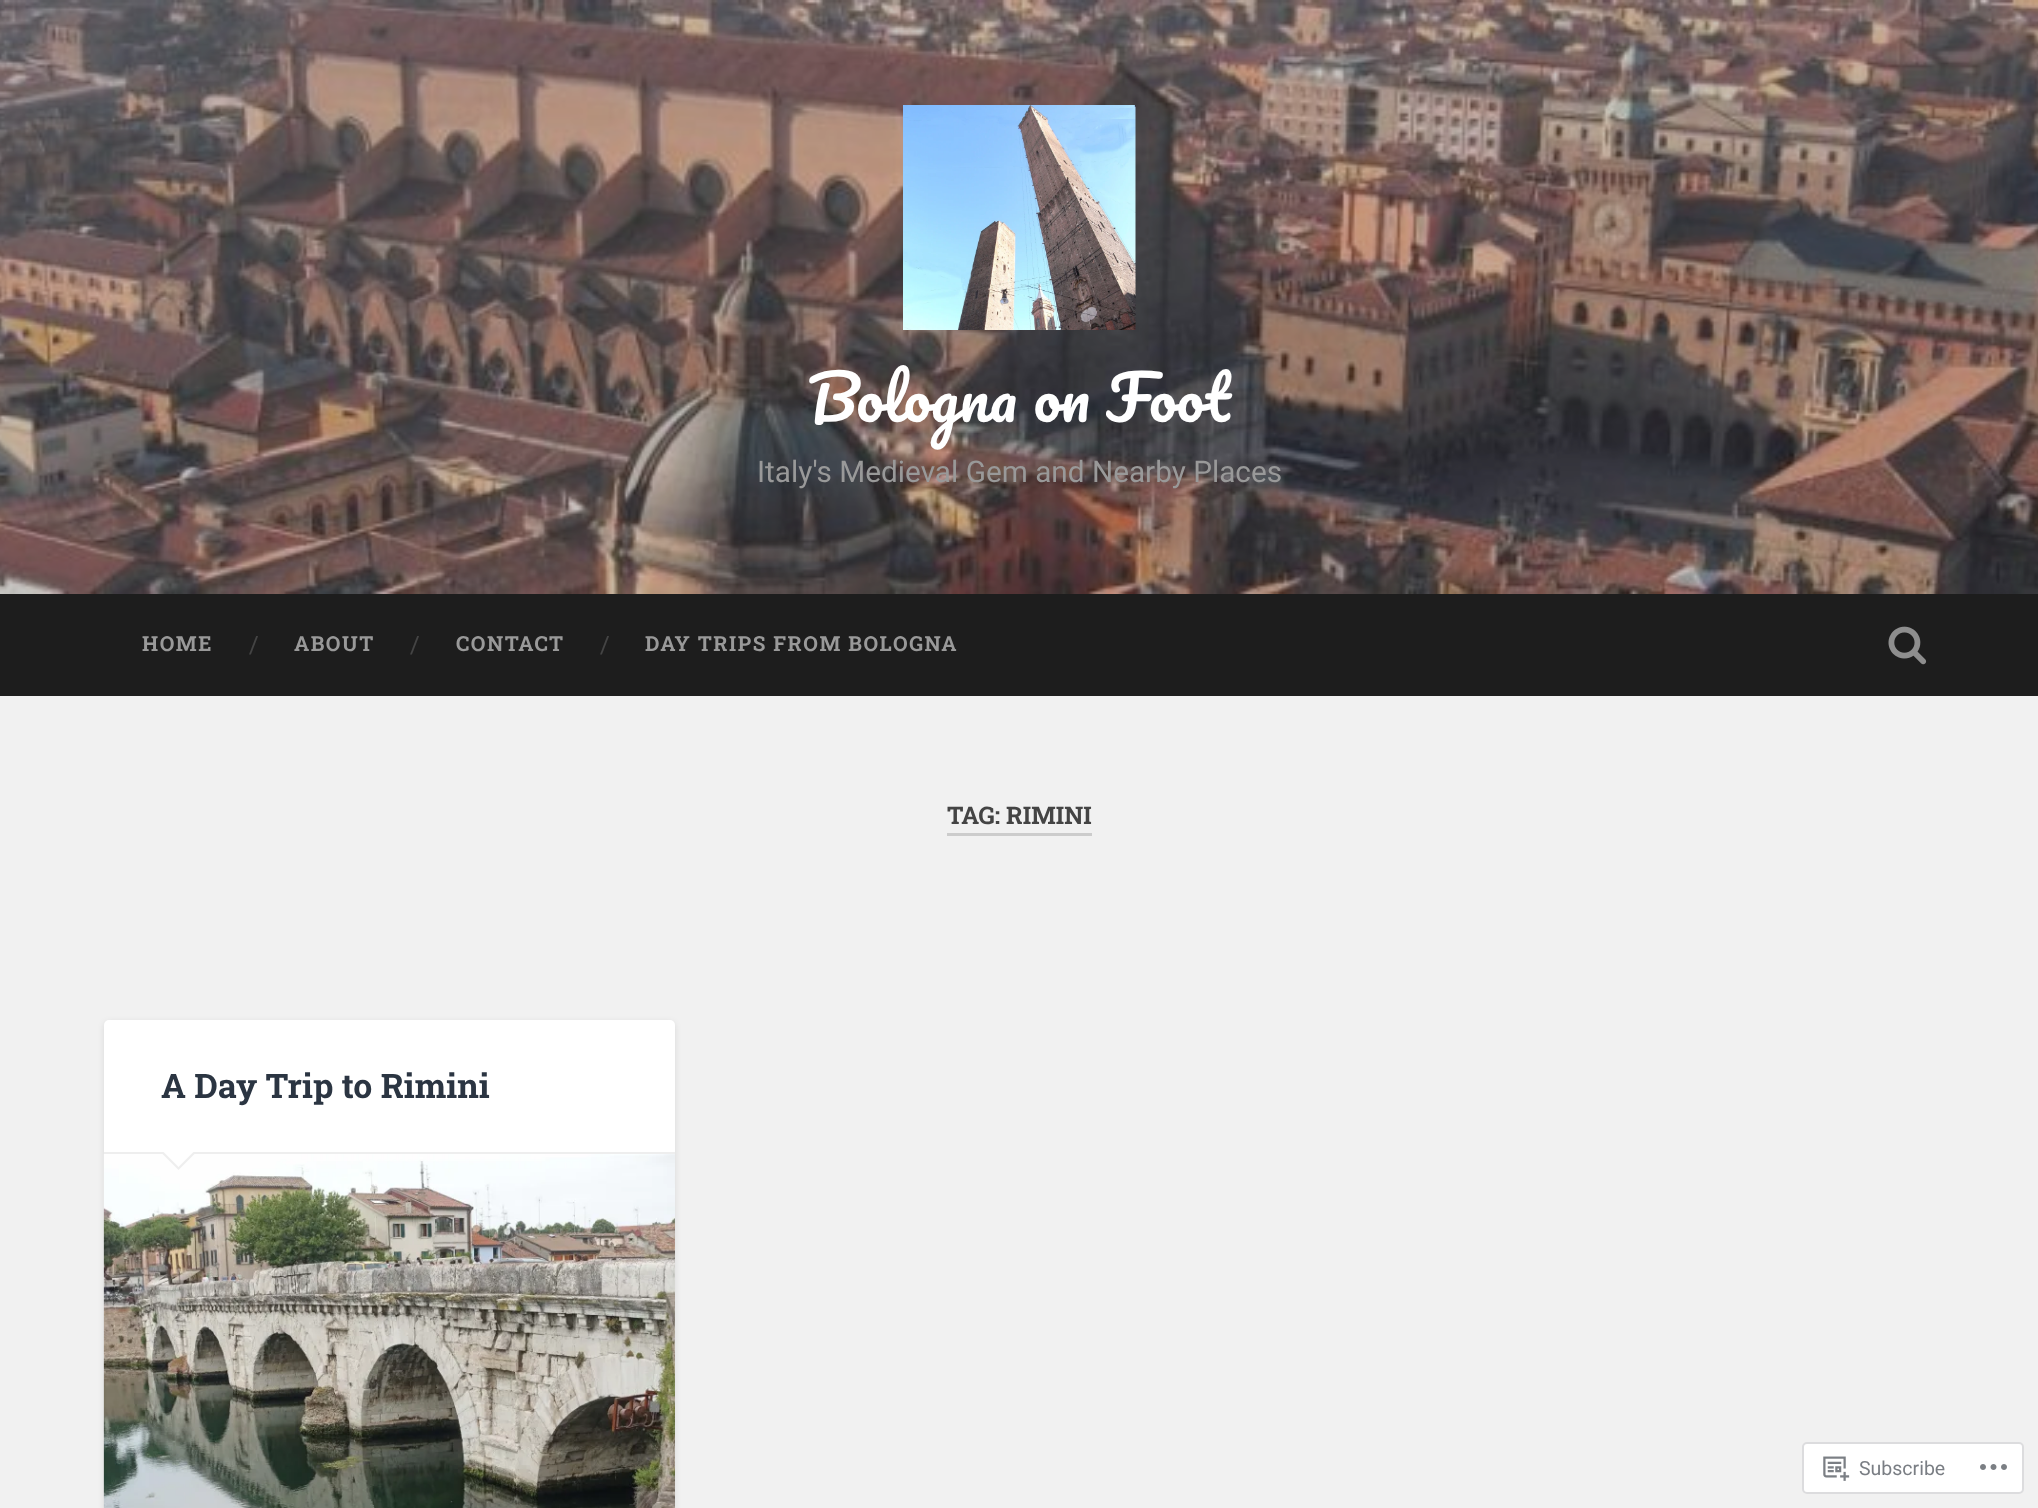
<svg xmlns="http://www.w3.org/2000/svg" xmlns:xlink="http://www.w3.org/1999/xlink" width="2038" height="1508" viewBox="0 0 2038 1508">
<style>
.cls-1{font:60.75px Pacifico;fill:#ffffff}
.cls-2{font:29.75px Roboto;fill:#999999}
.cls-3{font:bold 20.7px Roboto Slab;letter-spacing:1.5px;fill:#999999}
.cls-4{font:24px Roboto Slab;fill:#444444}
.cls-5{font:bold 24.25px Roboto Slab;fill:#444444}
.cls-6{font:bold 33.75px Roboto Slab;fill:#2b3542}
.cls-7{font:19.5px Roboto;fill:#7a7e84}
</style>
<rect width="100%" height="100%" fill="#f1f1f1"/>
<image xlink:href="image0.png" x="0" y="0" width="2038" height="594"/>
<image xlink:href="image1.png" x="903" y="105" width="233" height="225"/>
<rect fill="#1d1d1d" x="0" y="594" width="2038" height="102"/>
<image xlink:href="image2.png" x="1888" y="626" width="39" height="39"/>
<rect fill="#cccccc" x="947" y="833" width="145" height="3"/>
<rect fill="#000000" fill-opacity="0.1" filter="blur(3px)" x="104" y="1022" width="571" height="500" rx="5"/>
<rect fill="#ffffff" x="104" y="1020" width="571" height="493" rx="5"/>
<image xlink:href="image3.png" x="103" y="1153" width="572" height="355"/>
<rect fill="#eeeeee" x="104" y="1152" width="571" height="2"/>
<path fill="#eeeeee" d="M160.5 1152H196.5L178.5 1170Z"/>
<path fill="#ffffff" d="M162 1150.5H195L178.5 1167Z"/>
<rect fill="#ffffff" stroke="#dcdcde" stroke-width="2" x="1803" y="1443" width="220" height="50" rx="4"/>
<image xlink:href="image4.png" x="1823" y="1456" width="27" height="25"/>
<image xlink:href="image5.png" x="1980" y="1464" width="27" height="6"/>
<text class="cls-1" x="808" y="422">Bologna on Foot</text>
<text class="cls-2" x="757" y="482">Italy's Medieval Gem and Nearby Places</text>
<text class="cls-3" x="142" y="651">HOME</text>
<text class="cls-4" x="249" y="653">/</text>
<text class="cls-3" x="294" y="651">ABOUT</text>
<text class="cls-4" x="410" y="653">/</text>
<text class="cls-3" x="456" y="651">CONTACT</text>
<text class="cls-4" x="600" y="653">/</text>
<text class="cls-3" x="645" y="651">DAY TRIPS FROM BOLOGNA</text>
<text class="cls-5" x="947" y="824">TAG: RIMINI</text>
<text class="cls-6" x="161" y="1098">A Day Trip to Rimini</text>
<text class="cls-7" x="1859" y="1475">Subscribe</text>
</svg>
